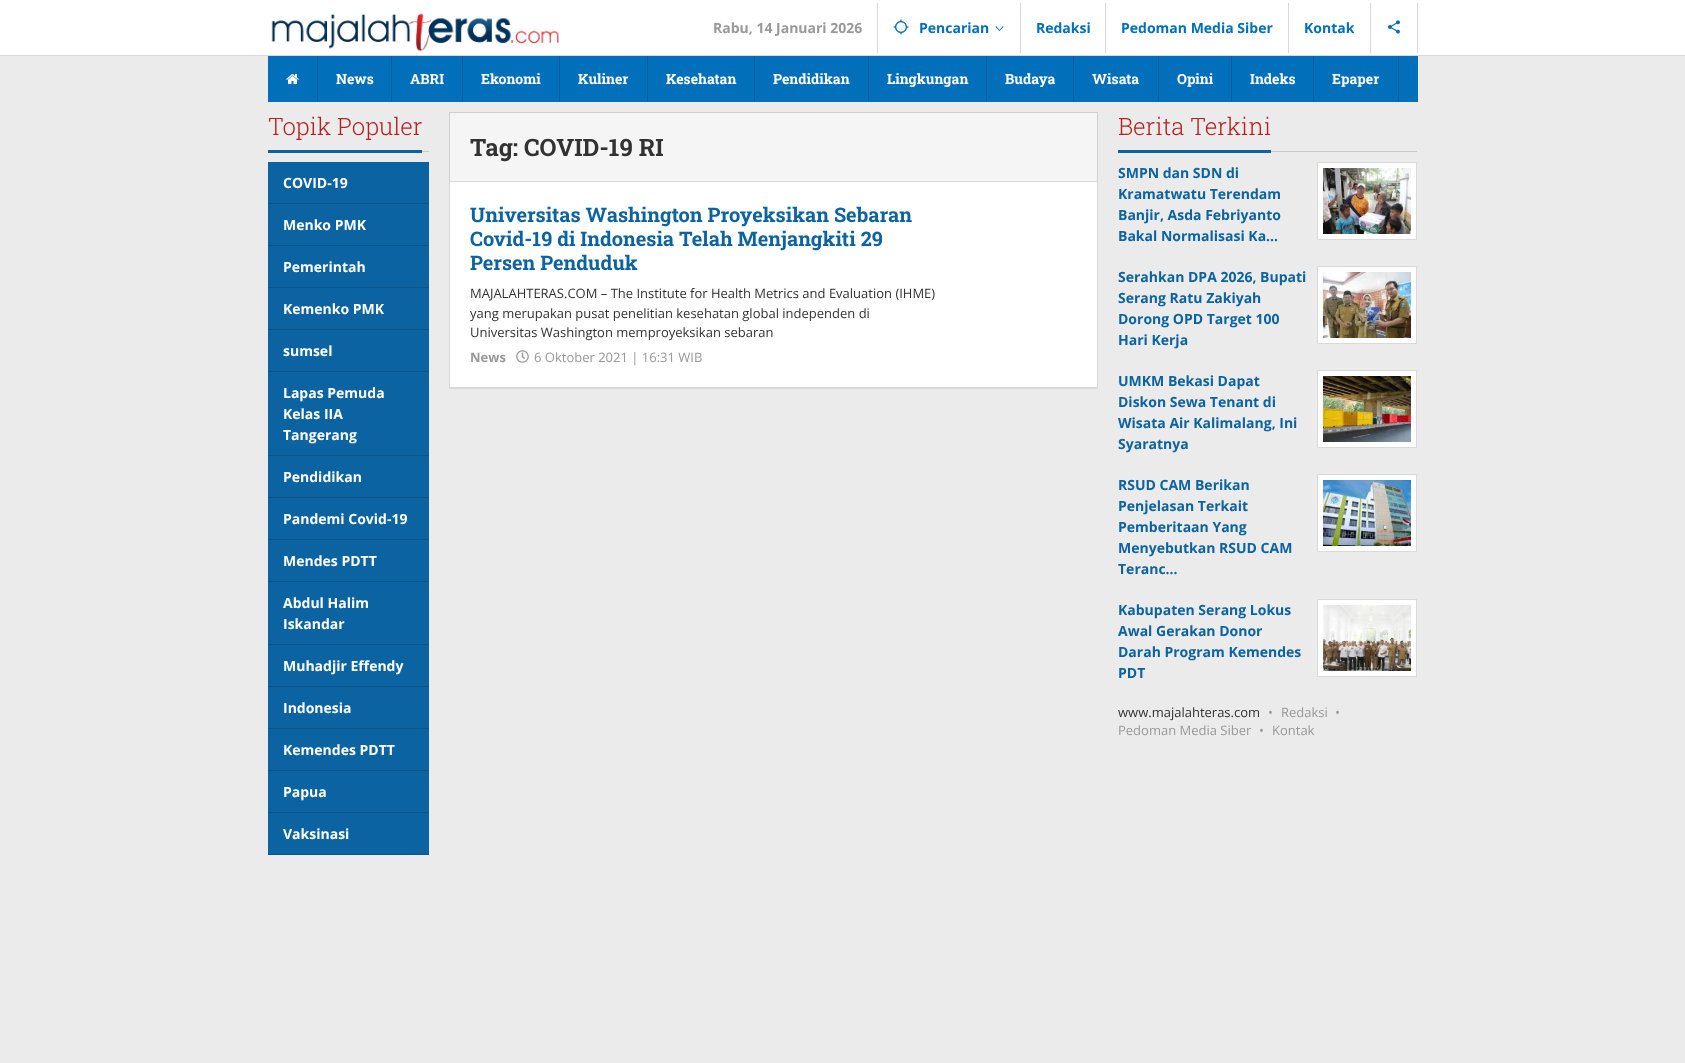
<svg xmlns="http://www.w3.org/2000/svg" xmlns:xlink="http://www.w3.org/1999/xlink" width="1685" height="1063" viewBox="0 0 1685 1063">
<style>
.cls-1{font:bold 14px Open Sans;fill:#999999}
.cls-2{font:bold 14px Open Sans;fill:#016fba}
.cls-3{font:bold 14px Roboto Slab;fill:#ffffff}
.cls-4{font:300 24px Roboto Slab;fill:#b9201f}
.cls-5{font:bold 14px Open Sans;fill:#ffffff}
.cls-6{font:bold 24px Roboto Slab;fill:#323233}
.cls-7{font:bold 20px Roboto Slab;fill:#0b63a1}
.cls-8{font:13px Open Sans;fill:#323233}
.cls-9{font:bold 13px Open Sans;fill:#999999}
.cls-10{font:13px Open Sans;fill:#999999}
.cls-11{font:bold 14px Open Sans;fill:#0b63a1}
</style>
<rect width="100%" height="100%" fill="#ebebeb"/>
<rect fill="#ffffff" x="0" y="0" width="1685" height="55"/>
<rect fill="#d9d9d9" x="0" y="55" width="1685" height="1"/>
<image xlink:href="image0.png" x="271" y="13" width="289" height="39"/>
<rect fill="#d9d9d9" x="877" y="3" width="1" height="50"/>
<rect fill="#d9d9d9" x="1020" y="3" width="1" height="50"/>
<image xlink:href="image1.png" x="893" y="19" width="16" height="16"/>
<path fill="#016fba" d="M1003 26L1003.5 27L999.5 31L999 30.5Z"/>
<path fill="#016fba" d="M996 26L1000 30.5L999.5 31L995.5 27Z"/>
<rect fill="#d9d9d9" x="1105" y="3" width="1" height="50"/>
<rect fill="#d9d9d9" x="1288" y="3" width="1" height="50"/>
<rect fill="#d9d9d9" x="1370" y="3" width="1" height="50"/>
<rect fill="#d9d9d9" x="1417" y="3" width="1" height="50"/>
<image xlink:href="image2.png" x="1388" y="20" width="12" height="14"/>
<rect fill="#016fba" x="268" y="56" width="1150" height="46"/>
<rect fill="#015e9e" x="317" y="56" width="1" height="46"/>
<image xlink:href="image3.png" x="286" y="74" width="13" height="10"/>
<rect fill="#015e9e" x="391" y="56" width="1" height="46"/>
<rect fill="#015e9e" x="462" y="56" width="1" height="46"/>
<rect fill="#015e9e" x="559" y="56" width="1" height="46"/>
<rect fill="#015e9e" x="647" y="56" width="1" height="46"/>
<rect fill="#015e9e" x="754" y="56" width="1" height="46"/>
<rect fill="#015e9e" x="868" y="56" width="1" height="46"/>
<rect fill="#015e9e" x="986" y="56" width="1" height="46"/>
<rect fill="#015e9e" x="1073" y="56" width="1" height="46"/>
<rect fill="#015e9e" x="1158" y="56" width="1" height="46"/>
<rect fill="#015e9e" x="1231" y="56" width="1" height="46"/>
<rect fill="#015e9e" x="1313" y="56" width="1" height="46"/>
<rect fill="#015e9e" x="1398" y="56" width="1" height="46"/>
<rect fill="#c8c8c8" x="422" y="151" width="7" height="1"/>
<rect fill="#0b63a1" x="268" y="150" width="154" height="3"/>
<rect fill="#0b63a1" x="268" y="162" width="161" height="692"/>
<rect fill="#095489" x="268" y="203" width="161" height="1"/>
<rect fill="#095489" x="268" y="245" width="161" height="1"/>
<rect fill="#095489" x="268" y="287" width="161" height="1"/>
<rect fill="#095489" x="268" y="329" width="161" height="1"/>
<rect fill="#095489" x="268" y="371" width="161" height="1"/>
<rect fill="#095489" x="268" y="455" width="161" height="1"/>
<rect fill="#095489" x="268" y="497" width="161" height="1"/>
<rect fill="#095489" x="268" y="539" width="161" height="1"/>
<rect fill="#095489" x="268" y="581" width="161" height="1"/>
<rect fill="#095489" x="268" y="644" width="161" height="1"/>
<rect fill="#095489" x="268" y="686" width="161" height="1"/>
<rect fill="#095489" x="268" y="728" width="161" height="1"/>
<rect fill="#095489" x="268" y="770" width="161" height="1"/>
<rect fill="#095489" x="268" y="812" width="161" height="1"/>
<rect fill="#095489" x="268" y="854" width="161" height="1"/>
<rect fill="#f5f5f5" stroke="#d0d0d0" x="449.5" y="112.5" width="648" height="69"/>
<rect fill="#ffffff" x="450" y="182" width="647" height="205"/>
<rect fill="none" stroke="#d9d9d9" x="449.5" y="181.5" width="648" height="207"/>
<rect fill="#d9d9d9" x="450" y="387" width="647" height="1"/>
<image xlink:href="image4.png" x="516" y="350" width="13" height="13"/>
<rect fill="#c8c8c8" x="1271" y="151" width="146" height="1"/>
<rect fill="#0b63a1" x="1118" y="150" width="153" height="3"/>
<rect fill="#ffffff" stroke="#d9d9d9" x="1317.5" y="162.5" width="99" height="77"/>
<image xlink:href="image5.png" x="1323" y="168" width="88" height="66"/>
<rect fill="#ffffff" stroke="#d9d9d9" x="1317.5" y="266.5" width="99" height="77"/>
<image xlink:href="image6.png" x="1323" y="272" width="88" height="66"/>
<rect fill="#ffffff" stroke="#d9d9d9" x="1317.5" y="370.5" width="99" height="77"/>
<image xlink:href="image7.png" x="1323" y="376" width="88" height="66"/>
<rect fill="#ffffff" stroke="#d9d9d9" x="1317.5" y="474.5" width="99" height="77"/>
<image xlink:href="image8.png" x="1323" y="480" width="88" height="66"/>
<rect fill="#ffffff" stroke="#d9d9d9" x="1317.5" y="599.5" width="99" height="77"/>
<image xlink:href="image9.png" x="1323" y="605" width="88" height="66"/>
<text class="cls-1" x="713" y="33">Rabu, 14 Januari 2026</text>
<text class="cls-2" x="919" y="33">Pencarian</text>
<text class="cls-2" x="1036" y="33">Redaksi</text>
<text class="cls-2" x="1121" y="33">Pedoman Media Siber</text>
<text class="cls-2" x="1304" y="33">Kontak</text>
<text class="cls-3" x="336" y="84">News</text>
<text class="cls-3" x="410" y="84">ABRI</text>
<text class="cls-3" x="481" y="84">Ekonomi</text>
<text class="cls-3" x="578" y="84">Kuliner</text>
<text class="cls-3" x="666" y="84">Kesehatan</text>
<text class="cls-3" x="773" y="84">Pendidikan</text>
<text class="cls-3" x="887" y="84">Lingkungan</text>
<text class="cls-3" x="1005" y="84">Budaya</text>
<text class="cls-3" x="1092" y="84">Wisata</text>
<text class="cls-3" x="1177" y="84">Opini</text>
<text class="cls-3" x="1250" y="84">Indeks</text>
<text class="cls-3" x="1332" y="84">Epaper</text>
<text class="cls-4" x="268" y="135">Topik Populer</text>
<text class="cls-5" x="283" y="188">COVID-19</text>
<text class="cls-5" x="283" y="230">Menko PMK</text>
<text class="cls-5" x="283" y="272">Pemerintah</text>
<text class="cls-5" x="283" y="314">Kemenko PMK</text>
<text class="cls-5" x="283" y="356">sumsel</text>
<text class="cls-5"><tspan x="283" y="398">Lapas Pemuda</tspan><tspan x="283" y="419">Kelas IIA</tspan><tspan x="283" y="440">Tangerang</tspan></text>
<text class="cls-5" x="283" y="482">Pendidikan</text>
<text class="cls-5" x="283" y="524">Pandemi Covid-19</text>
<text class="cls-5" x="283" y="566">Mendes PDTT</text>
<text class="cls-5"><tspan x="283" y="608">Abdul Halim</tspan><tspan x="283" y="629">Iskandar</tspan></text>
<text class="cls-5" x="283" y="671">Muhadjir Effendy</text>
<text class="cls-5" x="283" y="713">Indonesia</text>
<text class="cls-5" x="283" y="755">Kemendes PDTT</text>
<text class="cls-5" x="283" y="797">Papua</text>
<text class="cls-5" x="283" y="839">Vaksinasi</text>
<text class="cls-6" x="470" y="156">Tag: COVID-19 RI</text>
<text class="cls-7"><tspan x="470" y="222">Universitas Washington Proyeksikan Sebaran</tspan><tspan x="470" y="246">Covid-19 di Indonesia Telah Menjangkiti 29</tspan><tspan x="470" y="270">Persen Penduduk</tspan></text>
<text class="cls-8"><tspan x="470" y="298">MAJALAHTERAS.COM – The Institute for Health Metrics and Evaluation (IHME)</tspan><tspan x="470" y="318">yang merupakan pusat penelitian kesehatan global independen di</tspan><tspan x="470" y="337">Universitas Washington memproyeksikan sebaran</tspan></text>
<text class="cls-9" x="470" y="362">News</text>
<text class="cls-10" x="534" y="362">6 Oktober 2021 | 16:31 WIB</text>
<text class="cls-4" x="1118" y="135">Berita Terkini</text>
<text class="cls-11"><tspan x="1118" y="178">SMPN dan SDN di</tspan><tspan x="1118" y="199">Kramatwatu Terendam</tspan><tspan x="1118" y="220">Banjir, Asda Febriyanto</tspan><tspan x="1118" y="241">Bakal Normalisasi Ka…</tspan></text>
<text class="cls-11"><tspan x="1118" y="282">Serahkan DPA 2026, Bupati</tspan><tspan x="1118" y="303">Serang Ratu Zakiyah</tspan><tspan x="1118" y="324">Dorong OPD Target 100</tspan><tspan x="1118" y="345">Hari Kerja</tspan></text>
<text class="cls-11"><tspan x="1118" y="386">UMKM Bekasi Dapat</tspan><tspan x="1118" y="407">Diskon Sewa Tenant di</tspan><tspan x="1118" y="428">Wisata Air Kalimalang, Ini</tspan><tspan x="1118" y="449">Syaratnya</tspan></text>
<text class="cls-11"><tspan x="1118" y="490">RSUD CAM Berikan</tspan><tspan x="1118" y="511">Penjelasan Terkait</tspan><tspan x="1118" y="532">Pemberitaan Yang</tspan><tspan x="1118" y="553">Menyebutkan RSUD CAM</tspan><tspan x="1118" y="574">Teranc…</tspan></text>
<text class="cls-11"><tspan x="1118" y="615">Kabupaten Serang Lokus</tspan><tspan x="1118" y="636">Awal Gerakan Donor</tspan><tspan x="1118" y="657">Darah Program Kemendes</tspan><tspan x="1118" y="678">PDT</tspan></text>
<text class="cls-8" x="1118" y="717">www.majalahteras.com</text>
<text class="cls-10" x="1268" y="717">•</text>
<text class="cls-10" x="1281" y="717">Redaksi</text>
<text class="cls-10" x="1335" y="717">•</text>
<text class="cls-10" x="1118" y="735">Pedoman Media Siber</text>
<text class="cls-10" x="1259" y="735">•</text>
<text class="cls-10" x="1272" y="735">Kontak</text>
</svg>
